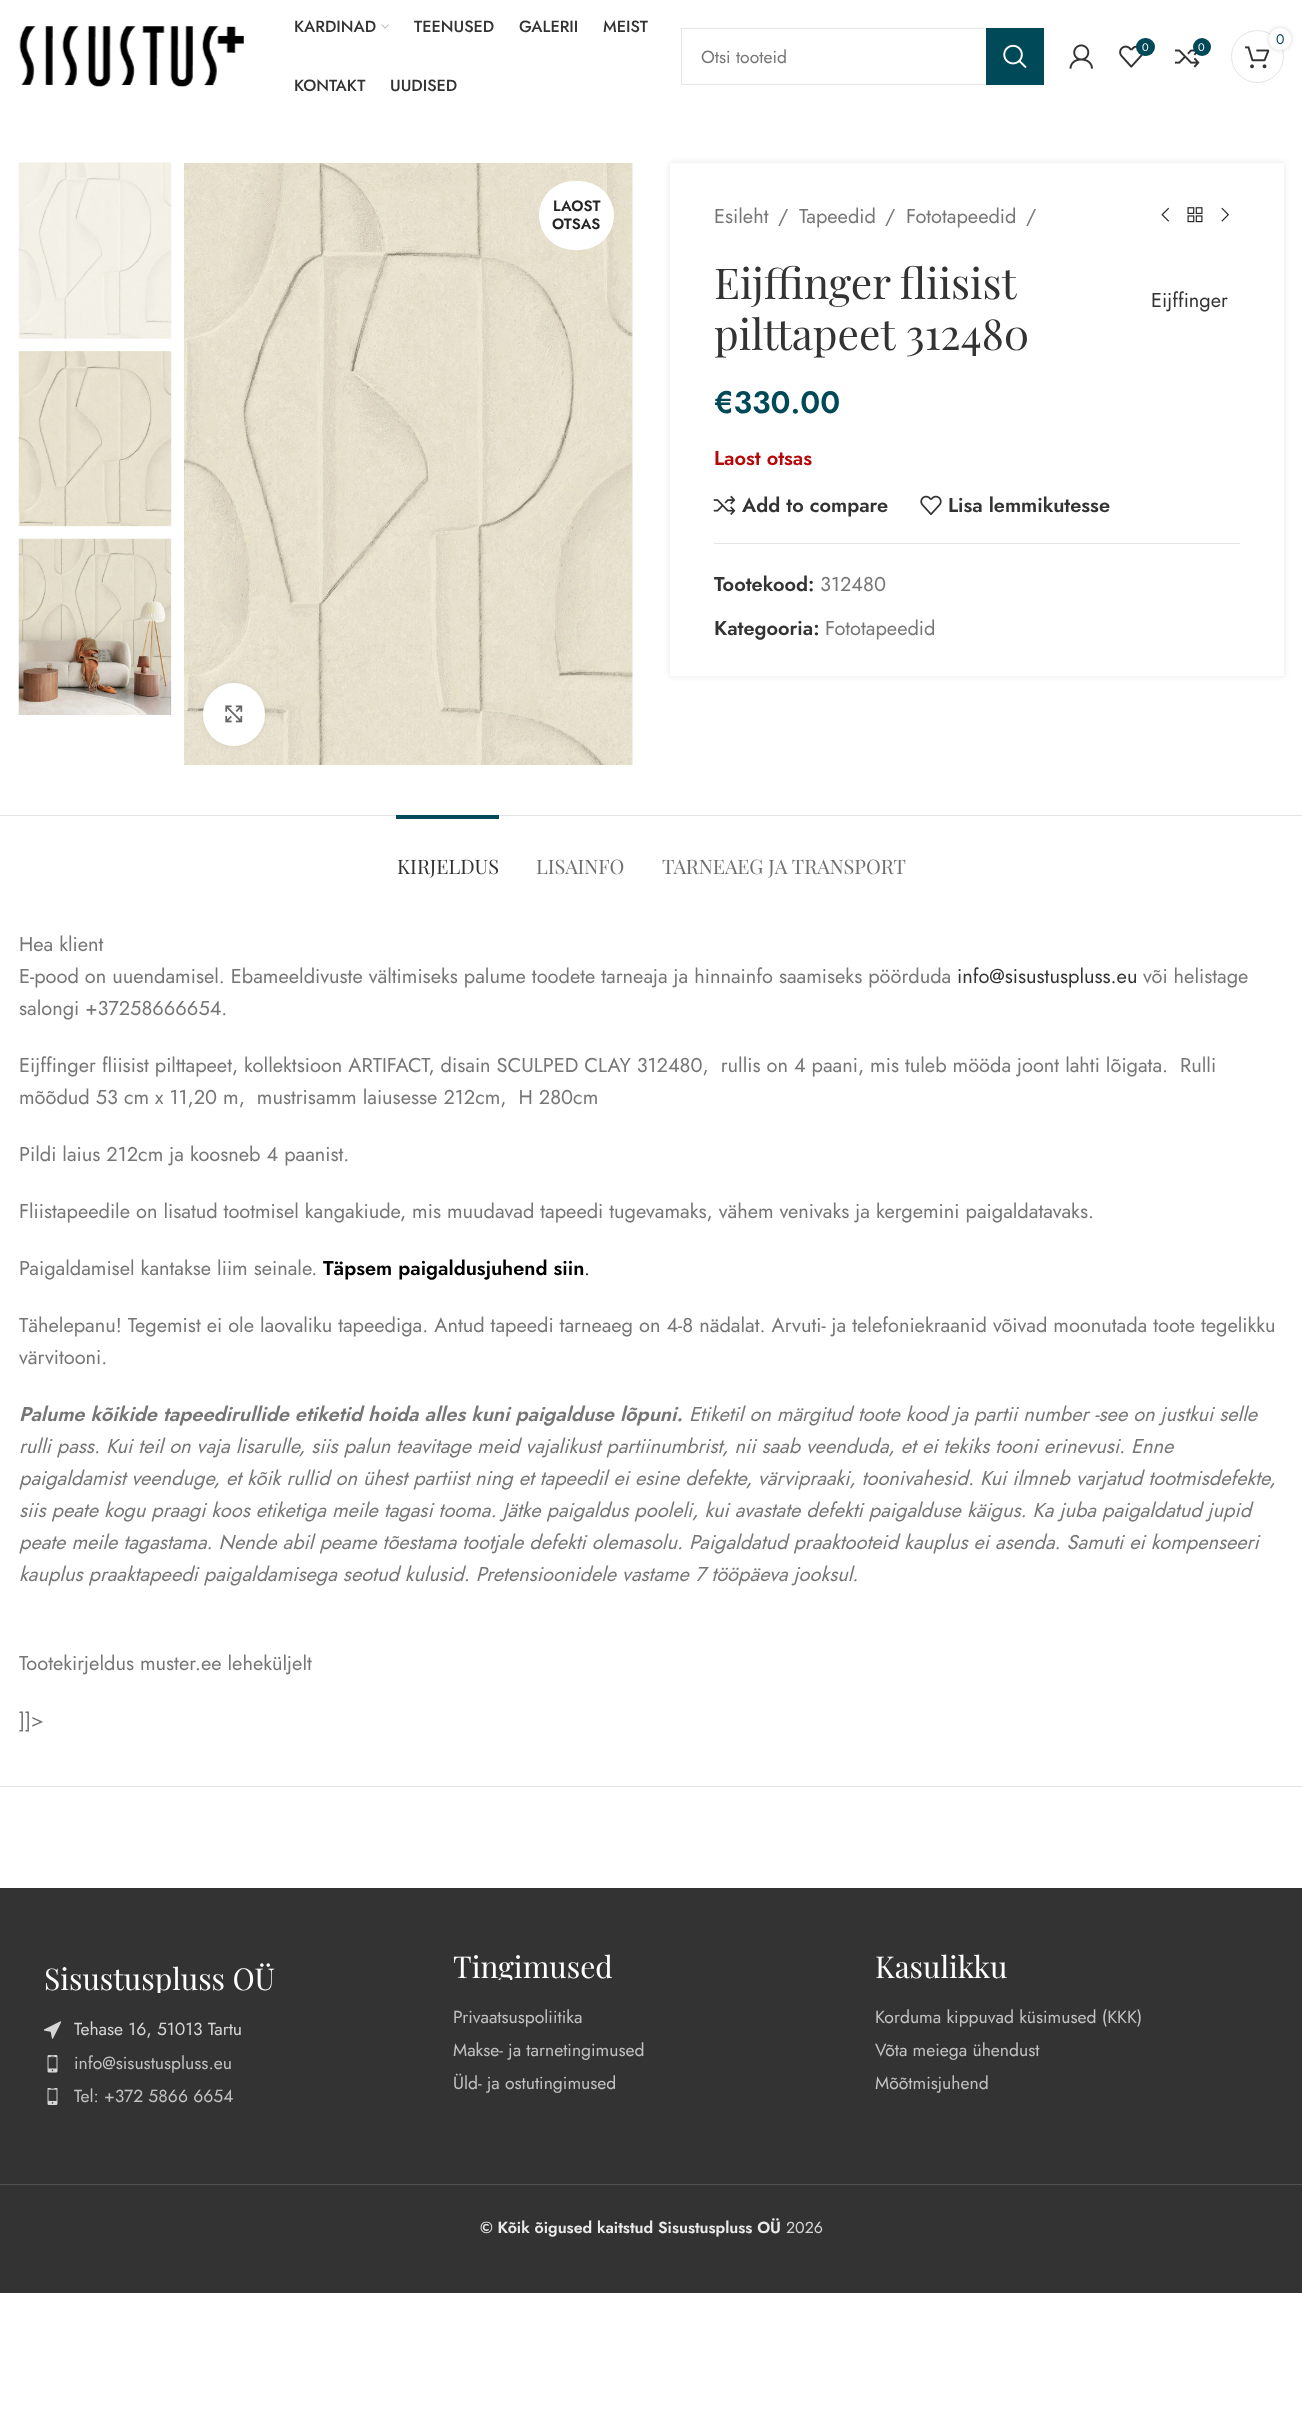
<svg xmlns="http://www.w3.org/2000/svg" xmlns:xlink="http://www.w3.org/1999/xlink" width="1302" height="2417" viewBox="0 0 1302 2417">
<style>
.cls-1{font:500 16.25px Jost;fill:#333333}
.cls-2{font:14px Jost;fill:#004958}
.cls-3{font:11px Jost;fill:#ffffff}
.cls-4{font:17.5px Jost;fill:#767676}
.cls-5{font:600 15px Jost;fill:#242424}
.cls-6{font:20px Jost;fill:#767676}
.cls-7{font:42.5px Playfair Display;fill:#333333}
.cls-8{font:20px Jost;fill:#333333}
.cls-9{font:600 31px Jost;fill:#004958}
.cls-10{font:600 20px Jost;fill:#b50808}
.cls-11{font:600 20px Jost;fill:#333333}
.cls-12{font:20px Playfair Display;fill:#333333}
.cls-13{font:20px Playfair Display;fill:#707070}
.cls-14{font:600 20px Jost;fill:#000000}
.cls-15{font:italic 600 20px Jost;fill:#767676}
.cls-16{font:italic 20px Jost;fill:#767676}
.cls-17{font:30px Playfair Display;fill:#ffffff}
.cls-18{font:17.5px Jost;fill:#d6d6d6}
.cls-19{font:17.5px Jost;fill:#c2c2c2}
.cls-20{font:600 16px Jost;fill:#ebebeb}
.cls-21{font:16px Jost;fill:#d6d6d6}
</style>
<defs>
<clipPath id="clip1"><rect x="44" y="1963" width="371" height="30"/></clipPath>
<clipPath id="clip2"><rect x="453" y="1950" width="397" height="30"/></clipPath>
</defs>
<rect width="100%" height="100%" fill="#ffffff"/>
<image xlink:href="image0.png" x="19" y="26" width="225" height="61"/>
<image xlink:href="image1.png" x="381" y="24" width="8" height="5"/>
<circle fill="none" stroke="#e4e4e4" cx="1257.5" cy="56.5" r="26"/>
<image xlink:href="image2.png" x="1245" y="46" width="25" height="23"/>
<rect fill="#000000" fill-opacity="0.17" filter="blur(2.5px)" x="1269" y="28" width="22" height="22" rx="11"/>
<circle fill="#ffffff" cx="1280" cy="39" r="11"/>
<image xlink:href="image3.png" x="1069" y="44" width="24" height="25"/>
<image xlink:href="image4.png" x="1119" y="45" width="24" height="23"/>
<rect fill="#004958" x="1136" y="38" width="19" height="18" rx="9"/>
<image xlink:href="image5.png" x="1175" y="46" width="25" height="22"/>
<circle fill="#004958" cx="1202" cy="47" r="9"/>
<rect fill="none" stroke="#e6e6e6" x="681.5" y="28.5" width="362" height="56"/>
<rect fill="#004958" x="986" y="28" width="58" height="57"/>
<image xlink:href="image6.png" x="1003" y="44" width="24" height="25"/>
<image xlink:href="image7.png" x="18" y="162" width="154" height="177"/>
<image xlink:href="image8.png" x="18" y="351" width="154" height="176"/>
<image xlink:href="image9.png" x="18" y="538" width="154" height="177"/>
<image xlink:href="image10.png" x="184" y="163" width="449" height="602"/>
<rect fill="#ffffff" x="539" y="181" width="75" height="69" rx="34.5"/>
<rect fill="#000000" fill-opacity="0.08" filter="blur(3px)" x="203" y="683" width="62" height="63" rx="31"/>
<rect fill="#ffffff" x="203" y="683" width="62" height="63" rx="31"/>
<image xlink:href="image11.png" x="225" y="705" width="18" height="18"/>
<rect fill="#000000" fill-opacity="0.1" filter="blur(3px)" x="670" y="163" width="614" height="513"/>
<rect fill="#ffffff" x="670" y="163" width="614" height="513"/>
<image xlink:href="image12.png" x="1161" y="207" width="8" height="15"/>
<image xlink:href="image13.png" x="1187" y="207" width="16" height="16"/>
<image xlink:href="image14.png" x="1221" y="207" width="8" height="15"/>
<image xlink:href="image15.png" x="713" y="495" width="23" height="20"/>
<image xlink:href="image16.png" x="920" y="495" width="22" height="20"/>
<rect fill="#e4e4e4" x="714" y="543" width="526" height="1"/>
<rect fill="#e4e4e4" x="0" y="815" width="1302" height="1"/>
<rect fill="#e4e4e4" x="0" y="1786" width="1302" height="1"/>
<rect fill="#004958" x="396" y="815" width="103" height="4"/>
<rect fill="#333333" x="0" y="1888" width="1302" height="405"/>
<image xlink:href="image17.png" x="44" y="2021" width="17" height="18"/>
<image xlink:href="image18.png" x="47" y="2055" width="11" height="18"/>
<image xlink:href="image19.png" x="47" y="2088" width="11" height="17"/>
<rect fill="#525252" x="0" y="2184" width="1302" height="1"/>
<text class="cls-1" x="294" y="32">KARDINAD</text>
<text class="cls-1" x="414" y="32">TEENUSED</text>
<text class="cls-1" x="519" y="32">GALERII</text>
<text class="cls-1" x="603" y="32">MEIST</text>
<text class="cls-1" x="294" y="91">KONTAKT</text>
<text class="cls-1" x="390" y="91">UUDISED</text>
<text class="cls-2" x="1276" y="44">0</text>
<text class="cls-3" x="1142" y="51">0</text>
<text class="cls-3" x="1198" y="51">0</text>
<text class="cls-4" x="701" y="63">Otsi tooteid</text>
<text class="cls-5" x="553" y="211">LAOST</text>
<text class="cls-5" x="552" y="229">OTSAS</text>
<text class="cls-6" x="714" y="223">Esileht</text>
<text class="cls-6" x="778" y="223">/</text>
<text class="cls-6" x="799" y="223">Tapeedid</text>
<text class="cls-6" x="885" y="223">/</text>
<text class="cls-6" x="906" y="223">Fototapeedid</text>
<text class="cls-6" x="1026" y="223">/</text>
<text class="cls-7"><tspan x="714" y="299" word-spacing="-1">Eijffinger fliisist</tspan><tspan x="714" y="350">pilttapeet 312480</tspan></text>
<text class="cls-8" x="1151" y="307">Eijffinger</text>
<text class="cls-9" x="714" y="413">€330.00</text>
<text class="cls-10" x="714" y="465">Laost otsas</text>
<text class="cls-11" x="742" y="512">Add to compare</text>
<text class="cls-11" x="948" y="512">Lisa lemmikutesse</text>
<text class="cls-11" x="714" y="591">Tootekood:</text>
<text class="cls-6" x="820" y="591">312480</text>
<text class="cls-11" x="714" y="635">Kategooria:</text>
<text class="cls-6" x="825" y="635">Fototapeedid</text>
<text class="cls-12" x="397" y="874">KIRJELDUS</text>
<text class="cls-13" x="536" y="874">LISAINFO</text>
<text class="cls-13" x="662" y="874">TARNEAEG JA TRANSPORT</text>
<text class="cls-6"><tspan x="19" y="951">Hea klient</tspan><tspan x="19" y="983">E-pood on uuendamisel. Ebameeldivuste vältimiseks palume toodete tarneaja ja hinnainfo saamiseks pöörduda</tspan></text>
<text class="cls-8" x="957" y="983">info@sisustuspluss.eu</text>
<text class="cls-6" x="1143" y="983">või helistage</text>
<text class="cls-6" x="19" y="1015">salongi +37258666654.</text>
<text class="cls-6" xml:space="preserve"><tspan x="19" y="1072">Eijffinger fliisist pilttapeet, kollektsioon ARTIFACT, disain SCULPED CLAY 312480,  rullis on 4 paani, mis tuleb mööda joont lahti lõigata.  Rulli</tspan><tspan x="19" y="1104">mõõdud 53 cm x 11,20 m,  mustrisamm laiusesse 212cm,  H 280cm</tspan></text>
<text class="cls-6" x="19" y="1161">Pildi laius 212cm ja koosneb 4 paanist.</text>
<text class="cls-6" x="19" y="1218">Fliistapeedile on lisatud tootmisel kangakiude, mis muudavad tapeedi tugevamaks, vähem venivaks ja kergemini paigaldatavaks.</text>
<text class="cls-6" x="19" y="1275">Paigaldamisel kantakse liim seinale.</text>
<text class="cls-14" x="323" y="1275">Täpsem paigaldusjuhend siin</text>
<text class="cls-8" x="584" y="1275">.</text>
<text class="cls-6"><tspan x="19" y="1332">Tähelepanu! Tegemist ei ole laovaliku tapeediga. Antud tapeedi tarneaeg on 4-8 nädalat. Arvuti- ja telefoniekraanid võivad moonutada toote tegelikku</tspan><tspan x="19" y="1364">värvitooni.</tspan></text>
<text class="cls-15" x="19" y="1421">Palume kõikide tapeedirullide etiketid hoida alles kuni paigalduse lõpuni.</text>
<text class="cls-16" x="689" y="1421">Etiketil on märgitud toote kood ja partii number -see on justkui selle</text>
<text class="cls-16"><tspan x="19" y="1453">rulli pass. Kui teil on vaja lisarulle, siis palun teavitage meid vajalikust partiinumbrist, nii saab veenduda, et ei tekiks tooni erinevusi. Enne</tspan><tspan x="19" y="1485">paigaldamist veenduge, et kõik rullid on ühest partiist ning et tapeedil ei esine defekte, värvipraaki, toonivahesid. Kui ilmneb varjatud tootmisdefekte,</tspan><tspan x="19" y="1517">siis peate kogu praagi koos etiketiga meile tagasi tooma. Jätke paigaldus pooleli, kui avastate defekti paigalduse käigus. Ka juba paigaldatud jupid</tspan><tspan x="19" y="1549">peate meile tagastama. Nende abil peame tõestama tootjale defekti olemasolu. Paigaldatud praaktooteid kauplus ei asenda. Samuti ei kompenseeri</tspan><tspan x="19" y="1581">kauplus praaktapeedi paigaldamisega seotud kulusid. Pretensioonidele vastame 7 tööpäeva jooksul.</tspan></text>
<text class="cls-6" x="19" y="1670">Tootekirjeldus muster.ee leheküljelt</text>
<text class="cls-6" x="19" y="1727">]]&gt;</text>
<g clip-path="url(#clip1)">
<text class="cls-17" x="44" y="1990">Sisustuspluss OÜ</text>
</g>
<text class="cls-18" x="74" y="2035">Tehase 16, 51013 Tartu</text>
<text class="cls-19"><tspan x="74" y="2069">info@sisustuspluss.eu</tspan><tspan x="74" y="2102">Tel: +372 5866 6654</tspan></text>
<g clip-path="url(#clip2)">
<text class="cls-17" x="453" y="1978">Tingimused</text>
</g>
<text class="cls-19"><tspan x="453" y="2023">Privaatsuspoliitika</tspan><tspan x="453" y="2056">Makse- ja tarnetingimused</tspan><tspan x="453" y="2089">Üld- ja ostutingimused</tspan></text>
<text class="cls-17" x="875" y="1978">Kasulikku</text>
<text class="cls-19"><tspan x="875" y="2023">Korduma kippuvad küsimused (KKK)</tspan><tspan x="875" y="2056">Võta meiega ühendust</tspan><tspan x="875" y="2089">Mõõtmisjuhend</tspan></text>
<text class="cls-20" x="480" y="2233">© Kõik õigused kaitstud Sisustuspluss OÜ</text>
<text class="cls-21" x="786" y="2233">2026</text>
</svg>
